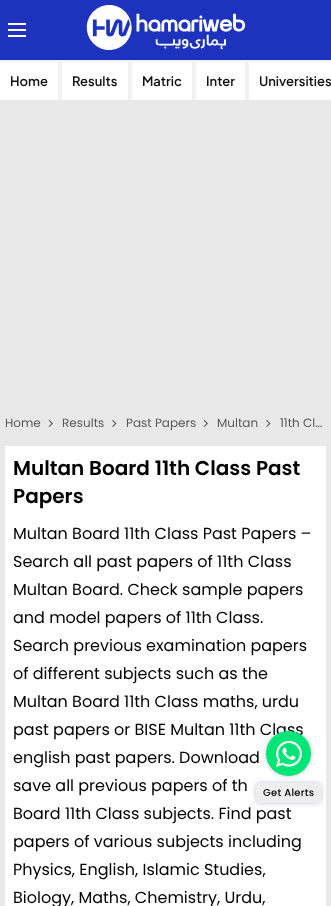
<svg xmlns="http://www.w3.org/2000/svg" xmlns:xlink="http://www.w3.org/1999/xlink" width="331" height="906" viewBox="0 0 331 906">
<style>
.cls-1{font:600 13px Plus Jakarta Sans;fill:#111111}
.cls-2{font:12px Poppins;fill:#595959}
.cls-3{font:600 20px Poppins;fill:#000000}
.cls-4{font:16px Poppins;fill:#000000}
.cls-5{font:500 10px Poppins;letter-spacing:0.25px;fill:#000000}
</style>
<rect width="100%" height="100%" fill="#e9e9e9"/>
<rect fill="#1d33bd" x="0" y="0" width="331" height="60"/>
<rect fill="#ffffff" x="8" y="29" width="18" height="2"/>
<rect fill="#ffffff" x="8" y="23" width="18" height="2"/>
<rect fill="#ffffff" x="8" y="35" width="18" height="2"/>
<image xlink:href="image0.png" x="86" y="5" width="160" height="45"/>
<rect fill="#f1f1f1" x="0" y="60" width="331" height="40"/>
<rect fill="#ffffff" x="0" y="62" width="58" height="38"/>
<rect fill="#ffffff" x="62" y="62" width="66" height="38"/>
<rect fill="#ffffff" x="132" y="62" width="60" height="38"/>
<rect fill="#ffffff" x="196" y="62" width="49" height="38"/>
<rect fill="#ffffff" x="249" y="62" width="82" height="38"/>
<path fill="#595959" d="M48.5 420.5L49.5 420L53 423.5L52 424Z"/>
<path fill="#595959" d="M48.5 426.5L52 423L53 423.5L49.5 427Z"/>
<path fill="#595959" d="M112 420.5L113 420L116.5 423.5L115.5 424Z"/>
<path fill="#595959" d="M112 426.5L115.5 423L116.5 423.5L113 427Z"/>
<path fill="#595959" d="M203.5 420.5L204.5 420L208 423.5L207 424Z"/>
<path fill="#595959" d="M203.5 426.5L207 423L208 423.5L204.5 427Z"/>
<path fill="#595959" d="M266 420.5L267 420L270.5 423.5L269.5 424Z"/>
<path fill="#595959" d="M266 426.5L269.5 423L270.5 423.5L267 427Z"/>
<rect fill="#ffffff" x="5" y="446" width="321" height="460"/>
<rect fill="#052962" fill-opacity="0.27" filter="blur(2.5px)" x="266" y="731" width="45" height="45" rx="22.5"/>
<text class="cls-1" x="10" y="86">Home</text>
<text class="cls-1" x="72" y="86">Results</text>
<text class="cls-1" x="142" y="86">Matric</text>
<text class="cls-1" x="206" y="86">Inter</text>
<text class="cls-1" x="259" y="86">Universities</text>
<text class="cls-2" x="5" y="427">Home</text>
<text class="cls-2" x="62" y="427">Results</text>
<text class="cls-2" x="126" y="427">Past Papers</text>
<text class="cls-2" x="217" y="427">Multan</text>
<text class="cls-2" x="280" y="427">11th Cl…</text>
<text class="cls-3"><tspan x="13" y="475">Multan Board 11th Class Past</tspan><tspan x="13" y="503">Papers</tspan></text>
<text class="cls-4"><tspan x="13" y="539">Multan Board 11th Class Past Papers –</tspan><tspan x="13" y="567">Search all past papers of 11th Class</tspan><tspan x="13" y="595">Multan Board. Check sample papers</tspan><tspan x="13" y="623">and model papers of 11th Class.</tspan><tspan x="13" y="651">Search previous examination papers</tspan><tspan x="13" y="679">of different subjects such as the</tspan><tspan x="13" y="707">Multan Board 11th Class maths, urdu</tspan><tspan x="13" y="735">past papers or BISE Multan 11th Class</tspan><tspan x="13" y="763">english past papers. Download</tspan><tspan x="13" y="791">save all previous papers of th</tspan><tspan x="13" y="819">Board 11th Class subjects. Find past</tspan><tspan x="13" y="847">papers of various subjects including</tspan><tspan x="13" y="875">Physics, English, Islamic Studies,</tspan><tspan x="13" y="903">Biology, Maths, Chemistry, Urdu,</tspan></text>
<circle fill="#00e676" cx="288.5" cy="753.5" r="22.5"/>
<image xlink:href="image1.png" x="276" y="740" width="26" height="27"/>
<rect fill="#052962" fill-opacity="0.27" filter="blur(2.5px)" x="256" y="783" width="65" height="20" rx="3"/>
<rect fill="#eeeeee" x="256" y="783" width="65" height="20" rx="3"/>
<text class="cls-5" x="263" y="796">Get Alerts</text>
</svg>
